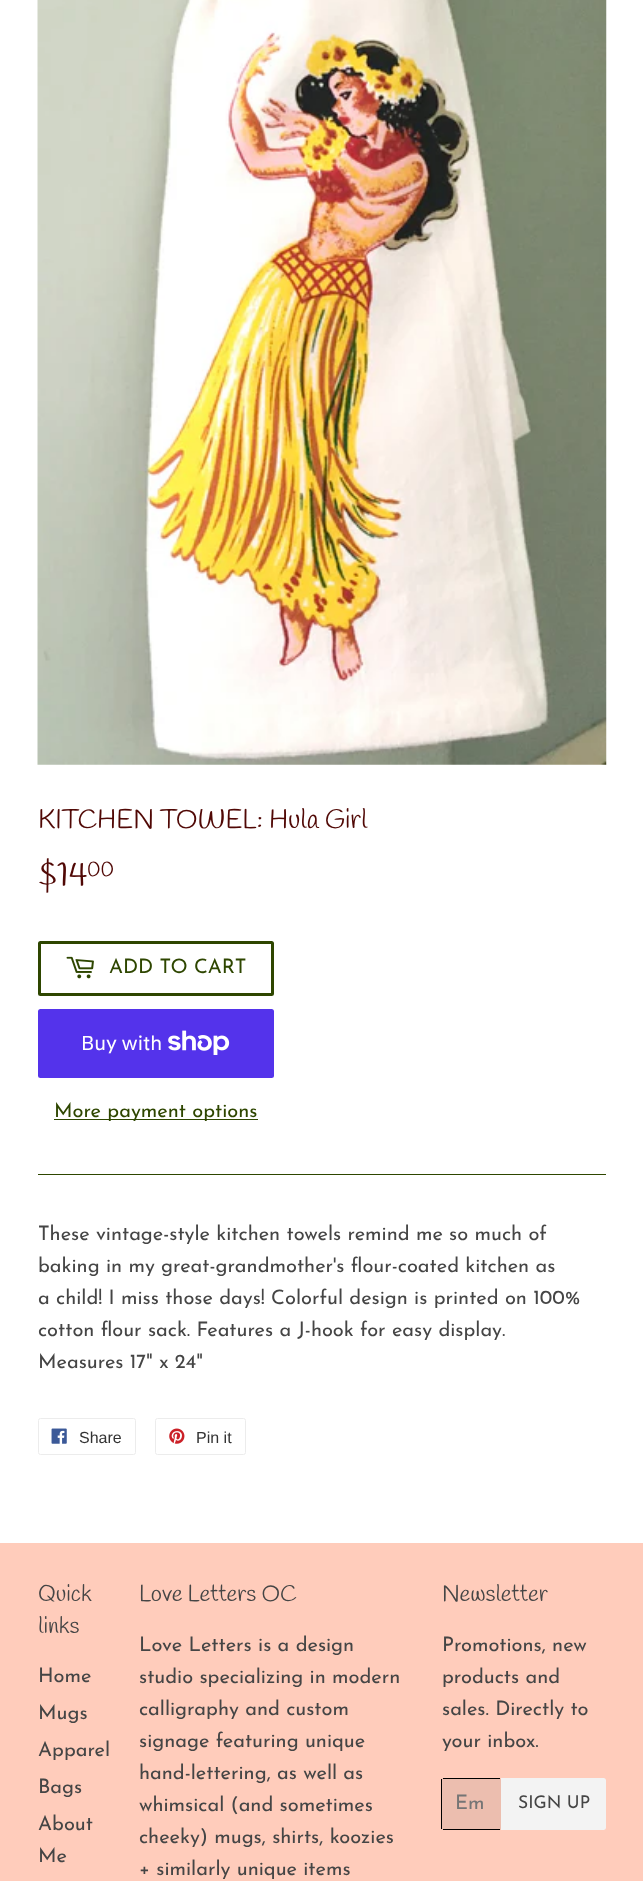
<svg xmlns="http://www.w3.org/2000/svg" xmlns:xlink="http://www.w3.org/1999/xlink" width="643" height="1881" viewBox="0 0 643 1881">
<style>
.cls-1{font:26.7px Handlee;fill:#500805}
.cls-2{font:35px Handlee;fill:#500805}
.cls-3{font:21px Handlee;fill:#500805}
.cls-4{font:20px Josefin Sans;fill:#2e4600}
.cls-5{font:20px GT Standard;fill:#ffffff}
.cls-6{font:20px Josefin Sans;fill:#454545}
.cls-7{font:16px Liberation Sans;fill:#333333}
.cls-8{font:22.75px Handlee;fill:#454545}
.cls-9{font:20px Josefin Sans;fill:#757575}
.cls-10{font:17.5px Josefin Sans;fill:#454545}
</style>
<rect width="100%" height="100%" fill="#ffffff"/>
<image xlink:href="image0.png" x="37" y="0" width="570" height="765"/>
<rect fill="none" stroke="#2e4600" stroke-width="3" x="39.5" y="942.5" width="233" height="52" rx="1"/>
<image xlink:href="image1.png" x="66" y="956" width="28" height="23"/>
<rect fill="#5433eb" x="38" y="1009" width="236" height="69" rx="2.5"/>
<image xlink:href="image2.png" x="168" y="1030" width="62" height="25"/>
<rect fill="#2e4600" x="54" y="1119" width="204" height="1"/>
<rect fill="#2e4600" x="38" y="1174" width="568" height="1"/>
<rect fill="none" stroke="#ececec" x="38.5" y="1418.5" width="97" height="36" rx="2"/>
<image xlink:href="image3.png" x="51" y="1428" width="16" height="16"/>
<rect fill="none" stroke="#ececec" x="155.5" y="1418.5" width="90" height="36" rx="2"/>
<image xlink:href="image4.png" x="169" y="1428" width="16" height="16"/>
<rect fill="#ffccbb" x="0" y="1543" width="643" height="338"/>
<rect fill="#ecbeaf" x="441" y="1778" width="60" height="52" rx="2.5"/>
<rect fill="#000000" x="443" y="1778" width="57" height="1"/>
<rect fill="#000000" x="443" y="1829" width="57" height="1"/>
<rect fill="#000000" x="441" y="1779" width="1" height="50"/>
<path fill="#f3f3f3" d="M501 1778H603.5C605 1778 606 1779 606 1780.5V1827.5C606 1829 605 1830 603.5 1830H501Z"/>
<text class="cls-1" x="38" y="828">KITCHEN TOWEL: Hula Girl</text>
<text class="cls-2" x="38" y="886">$14</text>
<text class="cls-3" x="87" y="876">00</text>
<text class="cls-4" x="109" y="973">ADD TO CART</text>
<text class="cls-5" x="81" y="1050">Buy with</text>
<text class="cls-4" x="54" y="1117">More payment options</text>
<text class="cls-6"><tspan x="38" y="1240">These vintage-style kitchen towels remind me so much of</tspan><tspan x="38" y="1272">baking in my great-grandmother's flour-coated kitchen as</tspan><tspan x="38" y="1304">a child! I miss those days! Colorful design is printed on 100%</tspan><tspan x="38" y="1336">cotton flour sack. Features a J-hook for easy display.</tspan><tspan x="38" y="1368">Measures 17" x 24"</tspan></text>
<text class="cls-7" x="79" y="1443">Share</text>
<text class="cls-7" x="196" y="1443">Pin it</text>
<text class="cls-8"><tspan x="38" y="1601">Quick</tspan><tspan x="38" y="1633">links</tspan></text>
<text class="cls-6"><tspan x="38" y="1682">Home</tspan><tspan x="38" y="1719">Mugs</tspan><tspan x="38" y="1756">Apparel</tspan><tspan x="38" y="1793">Bags</tspan><tspan x="38" y="1830">About</tspan><tspan x="38" y="1862">Me</tspan></text>
<text class="cls-8" x="139" y="1601">Love Letters OC</text>
<text class="cls-6"><tspan x="139" y="1651">Love Letters is a design</tspan><tspan x="139" y="1683">studio specializing in modern</tspan><tspan x="139" y="1715">calligraphy and custom</tspan><tspan x="139" y="1747">signage featuring unique</tspan><tspan x="139" y="1779">hand-lettering, as well as</tspan><tspan x="139" y="1811">whimsical (and sometimes</tspan><tspan x="139" y="1843">cheeky) mugs, shirts, koozies</tspan><tspan x="139" y="1875">+ similarly unique items</tspan></text>
<text class="cls-8" x="442" y="1601">Newsletter</text>
<text class="cls-6"><tspan x="442" y="1651">Promotions, new</tspan><tspan x="442" y="1683">products and</tspan><tspan x="442" y="1715">sales. Directly to</tspan><tspan x="442" y="1747">your inbox.</tspan></text>
<text class="cls-9" x="455" y="1809">Em</text>
<text class="cls-10" x="518" y="1808">SIGN UP</text>
</svg>
